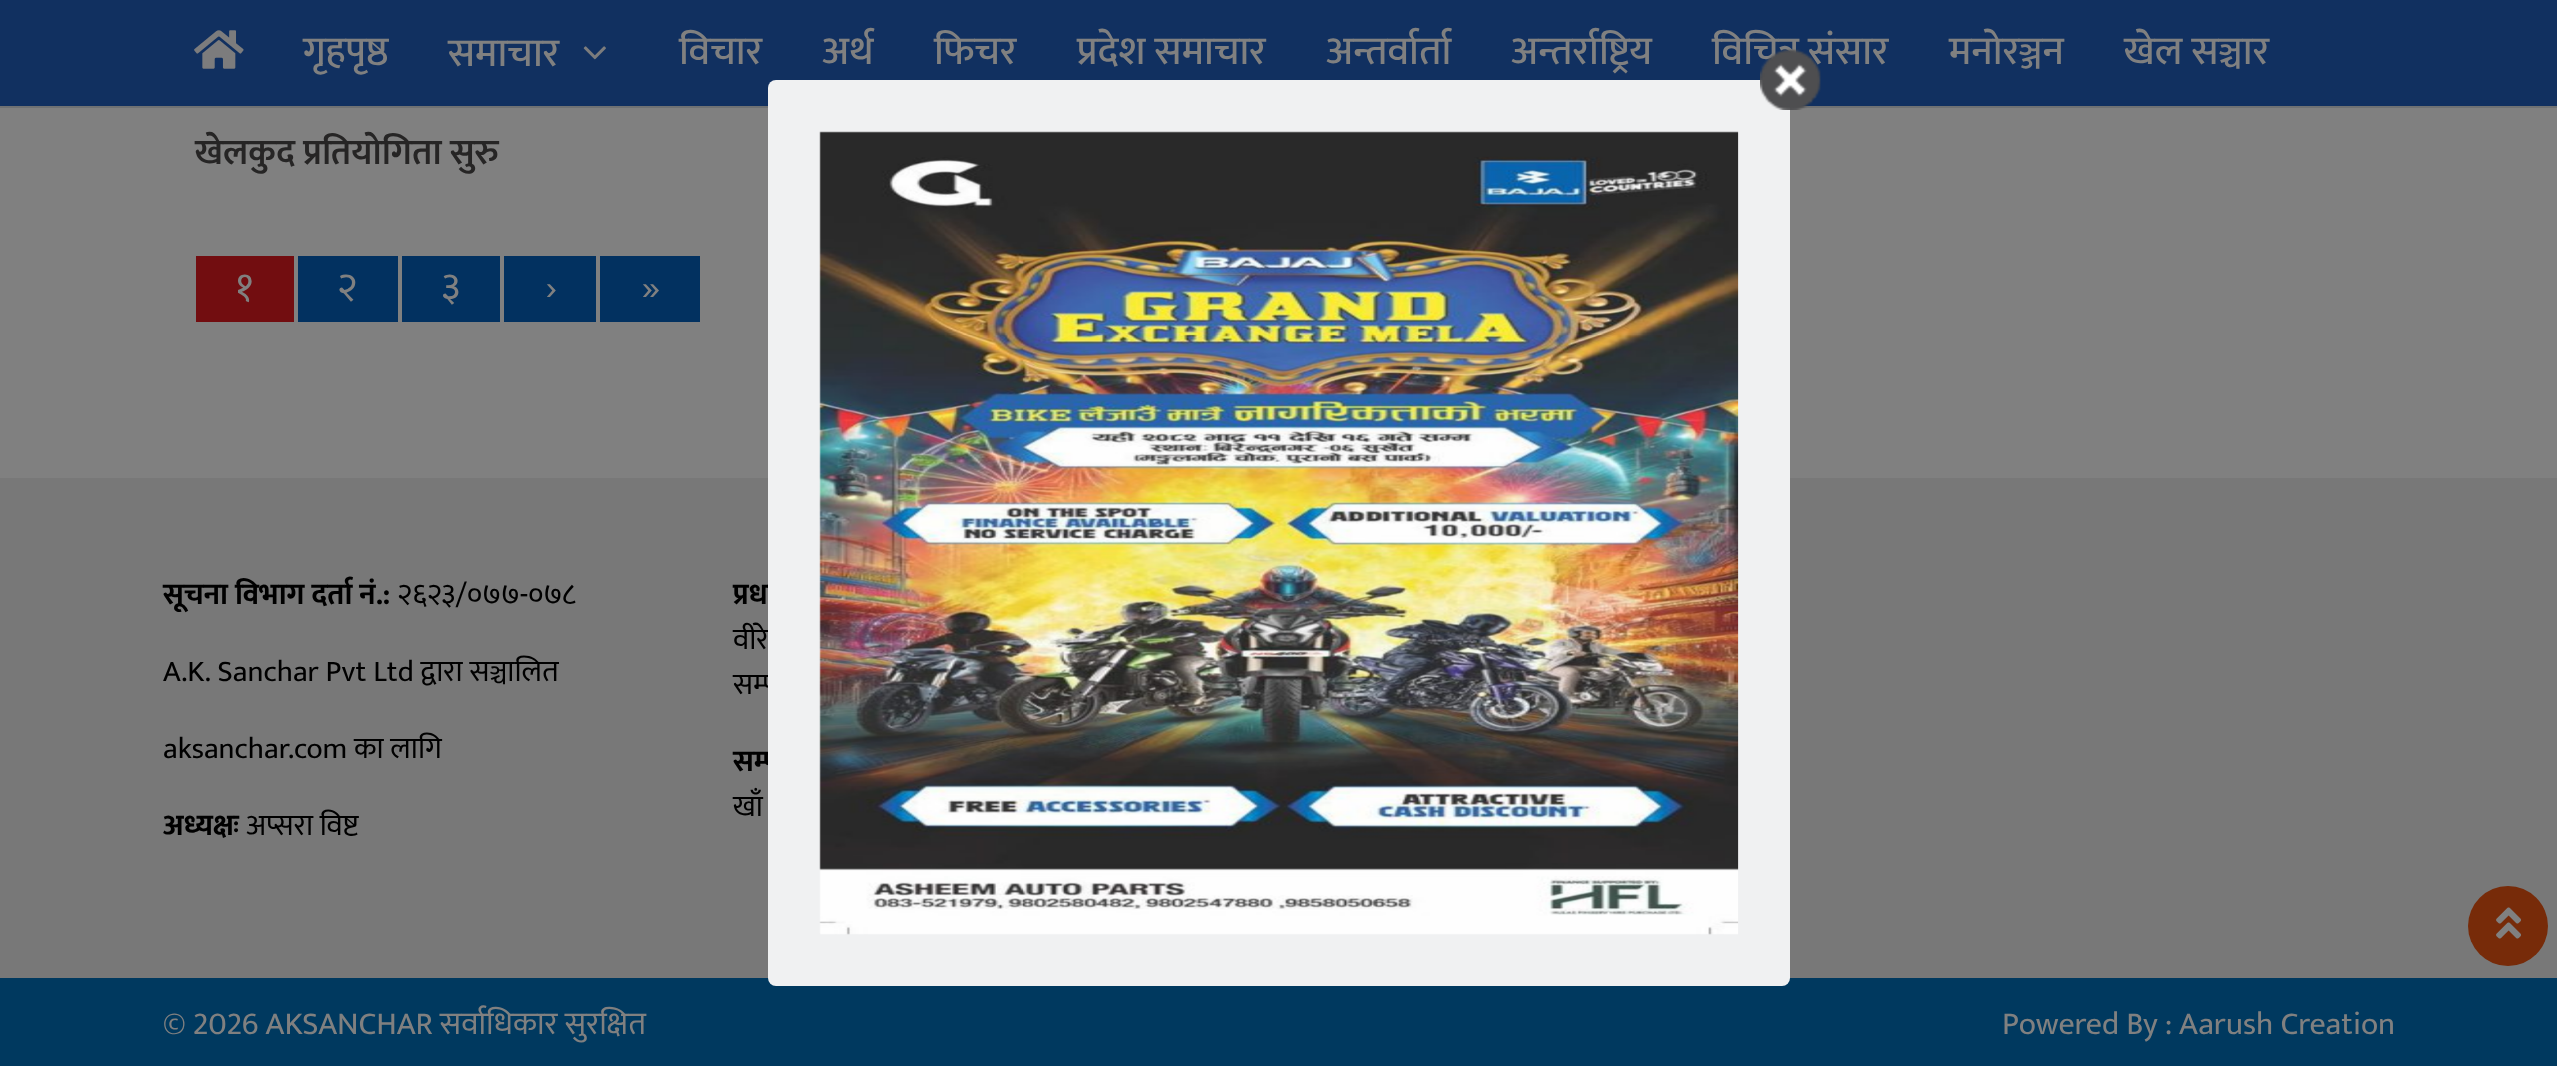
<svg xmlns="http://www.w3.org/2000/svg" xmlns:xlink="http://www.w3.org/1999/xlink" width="2557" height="1066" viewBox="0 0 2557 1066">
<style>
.cls-1{font:500 40px Mukta;fill:#808080}
.cls-2{font:600 36px Mukta;fill:#262525}
.cls-3{font:40px Mukta;fill:#808080}
.cls-4{font:bold 30px Mukta;fill:#000000}
.cls-5{font:30px Mukta;fill:#000000}
.cls-6{font:32px Mukta;fill:#808080}
</style>
<rect width="100%" height="100%" fill="#808080"/>
<rect fill="#113060" x="0" y="0" width="2557" height="106"/>
<rect fill="#6f7173" x="0" y="106" width="2557" height="2"/>
<image xlink:href="image0.png" x="194" y="30" width="50" height="39"/>
<image xlink:href="image1.png" x="583" y="46" width="23" height="14"/>
<rect fill="#720d10" x="196" y="256" width="98" height="66"/>
<rect fill="#023160" x="298" y="256" width="100" height="66"/>
<rect fill="#023160" x="402" y="256" width="98" height="66"/>
<rect fill="#023160" x="504" y="256" width="92" height="66"/>
<rect fill="#023160" x="600" y="256" width="100" height="66"/>
<rect fill="#787878" x="0" y="478" width="2557" height="500"/>
<circle fill="#772b09" cx="2508" cy="926" r="40"/>
<image xlink:href="image4.png" x="2496" y="907" width="25" height="32"/>
<rect fill="#00395f" x="0" y="978" width="2557" height="88"/>
<text class="cls-1" x="303" y="64">गृहपृष्ठ</text>
<text class="cls-1" x="448" y="66">समाचार</text>
<text class="cls-1" x="679" y="64">विचार</text>
<text class="cls-1" x="822" y="64">अर्थ</text>
<text class="cls-1" x="934" y="64">फिचर</text>
<text class="cls-1" x="1077" y="64">प्रदेश समाचार</text>
<text class="cls-1" x="1326" y="64">अन्तर्वार्ता</text>
<text class="cls-1" x="1511" y="64">अन्तर्राष्ट्रिय</text>
<text class="cls-1" x="1712" y="64">विचित्र संसार</text>
<text class="cls-1" x="1949" y="64">मनोरञ्जन</text>
<text class="cls-1" x="2124" y="64">खेल सञ्चार</text>
<text class="cls-2" x="195" y="164">खेलकुद प्रतियोगिता सुरु</text>
<text class="cls-3" x="235" y="300">१</text>
<text class="cls-3" x="337" y="300">२</text>
<text class="cls-3" x="441" y="300">३</text>
<text class="cls-3" x="545" y="300">›</text>
<text class="cls-3" x="641" y="300">»</text>
<text class="cls-4" x="163" y="604">सूचना विभाग दर्ता नं.:</text>
<text class="cls-5" x="397" y="604">२६२३/०७७-०७८</text>
<text class="cls-5" x="163" y="681">A.K. Sanchar Pvt Ltd द्वारा सञ्चालित</text>
<text class="cls-5" x="163" y="758">aksanchar.com का लागि</text>
<text class="cls-4" x="163" y="835">अध्यक्षः</text>
<text class="cls-5" x="246" y="835">अप्सरा विष्ट</text>
<text class="cls-4" x="733" y="604">प्रधा</text>
<text class="cls-5"><tspan x="733" y="649">वीरे</tspan><tspan x="733" y="694">सम्प</tspan></text>
<text class="cls-4" x="733" y="771">सम्प</text>
<rect fill="#f0f1f2" x="768" y="80" width="1022" height="906" rx="8"/>
<image xlink:href="image2.png" x="1760" y="49" width="61" height="61"/>
<image xlink:href="image3.png" x="819" y="131" width="920" height="804"/>
<text class="cls-5" x="733" y="816">खाँ</text>
<text class="cls-6" x="163" y="1034">© 2026 AKSANCHAR सर्वाधिकार सुरक्षित</text>
<text class="cls-6" x="2002" y="1034">Powered By :</text>
<text class="cls-6" x="2179" y="1034">Aarush Creation</text>
</svg>
